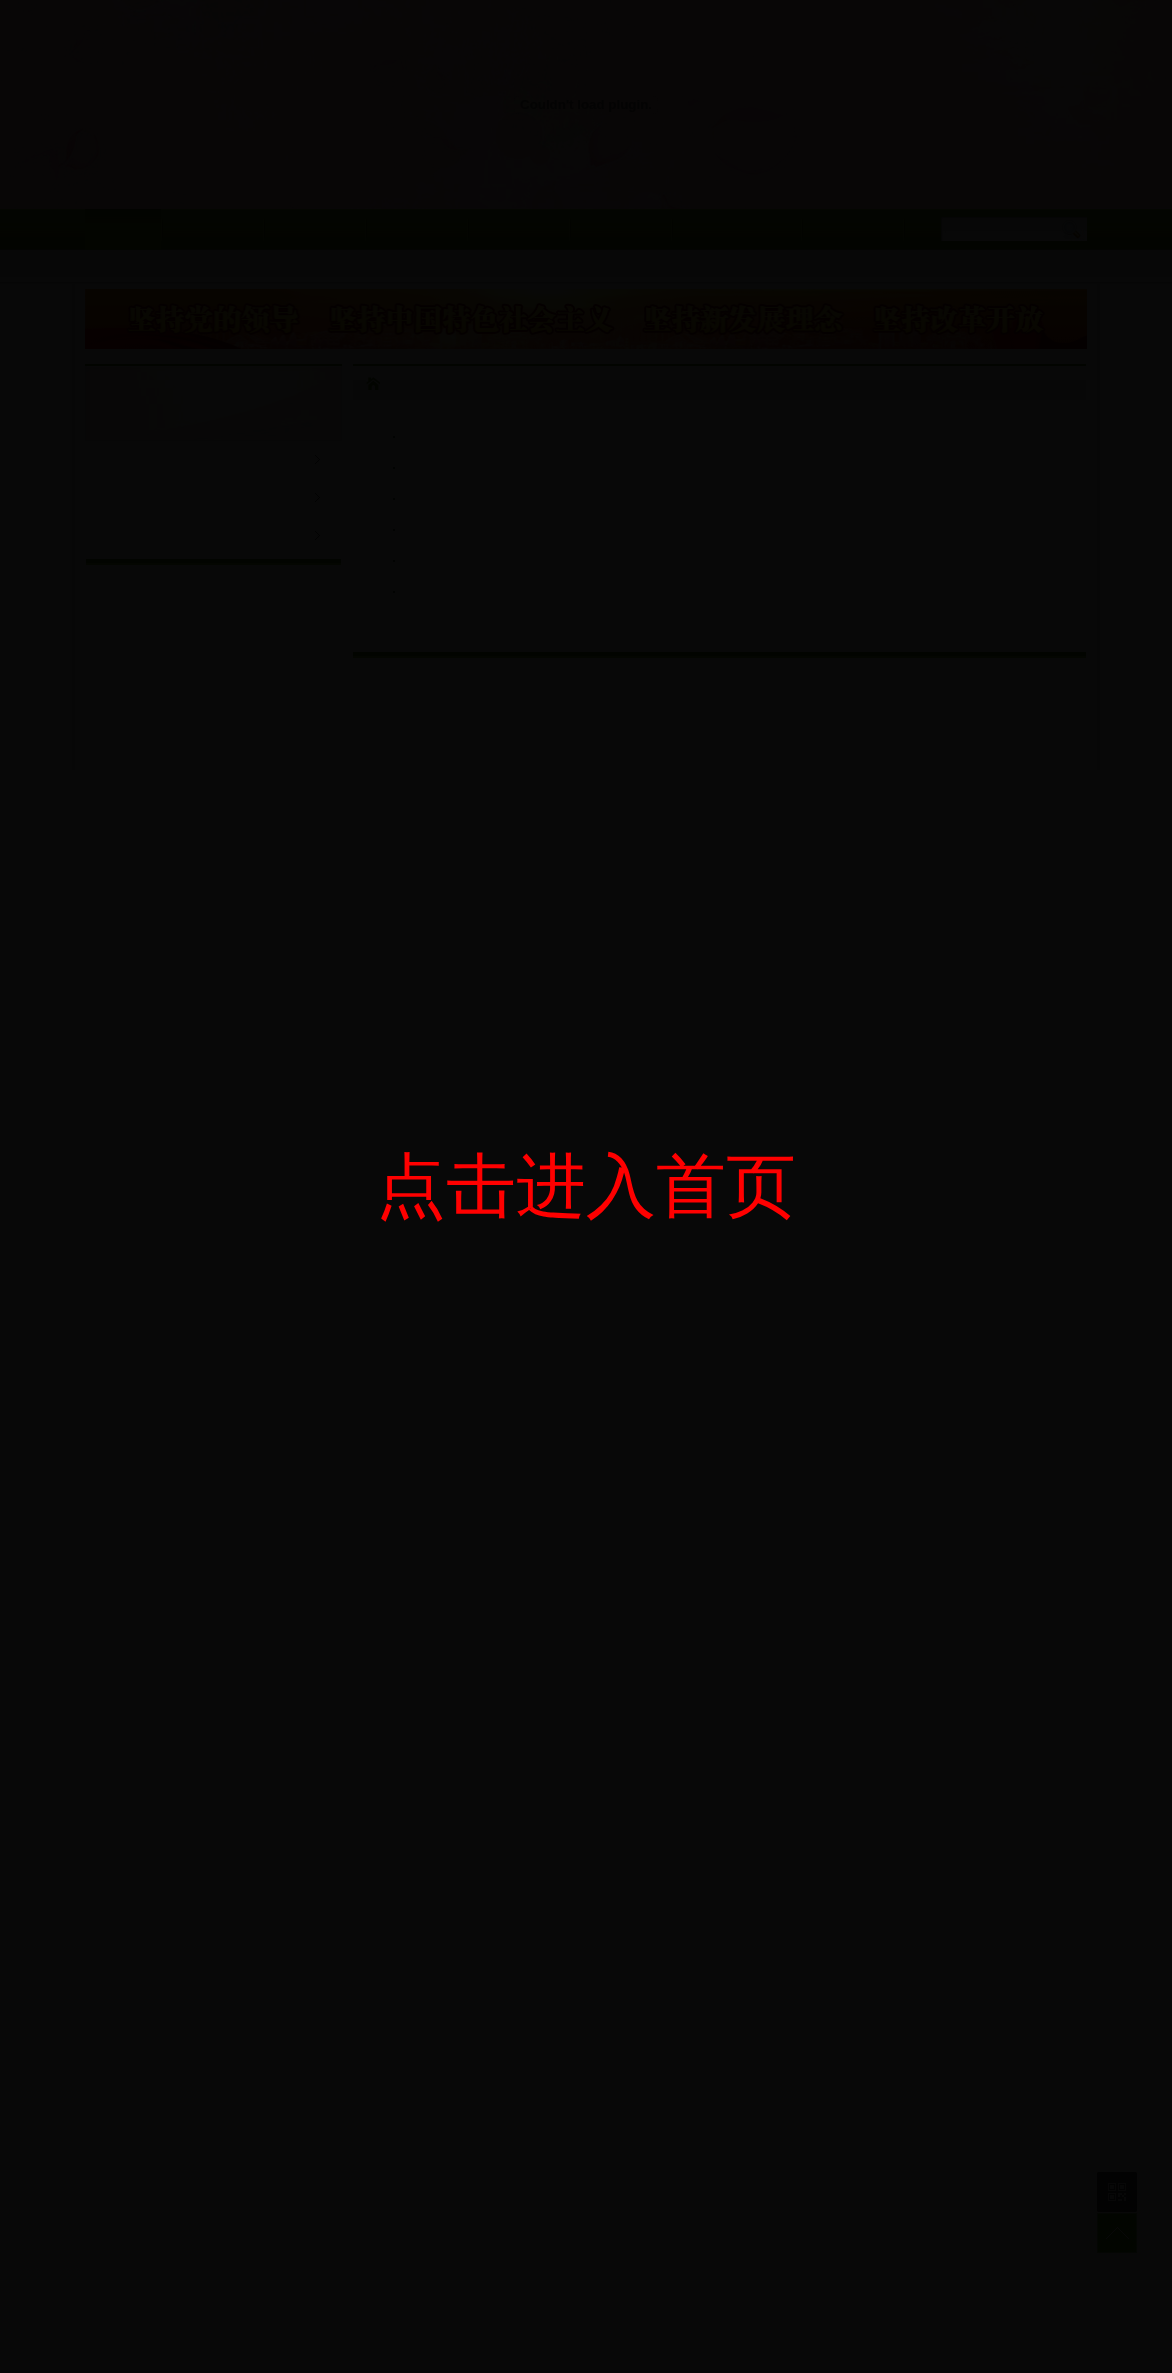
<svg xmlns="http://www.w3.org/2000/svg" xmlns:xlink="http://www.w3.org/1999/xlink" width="1172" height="2373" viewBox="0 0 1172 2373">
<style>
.cls-1{font:500 70px WenQuanYi Zen Hei;fill:#ff0000}
</style>
<rect width="100%" height="100%" fill="#080808"/>
<image xlink:href="image0.png" x="0" y="0" width="1172" height="209"/>
<image xlink:href="image1.png" x="514" y="96" width="144" height="18"/>
<image xlink:href="image2.png" x="0" y="209" width="1172" height="75"/>
<image xlink:href="image3.png" x="161" y="217" width="2" height="24"/>
<image xlink:href="image4.png" x="85" y="209" width="76" height="41"/>
<image xlink:href="image3.png" x="263" y="217" width="2" height="24"/>
<image xlink:href="image3.png" x="365" y="217" width="2" height="24"/>
<image xlink:href="image3.png" x="467" y="217" width="2" height="24"/>
<image xlink:href="image3.png" x="569" y="217" width="2" height="24"/>
<image xlink:href="image3.png" x="671" y="217" width="2" height="24"/>
<image xlink:href="image3.png" x="801" y="217" width="2" height="24"/>
<image xlink:href="image3.png" x="903" y="217" width="2" height="24"/>
<image xlink:href="image5.png" x="941" y="217" width="146" height="24"/>
<image xlink:href="image6.png" x="72" y="284" width="1028" height="70"/>
<image xlink:href="image7.png" x="85" y="289" width="1002" height="60"/>
<image xlink:href="image8.png" x="72" y="354" width="1028" height="416"/>
<image xlink:href="image9.png" x="85" y="364" width="257" height="77"/>
<image xlink:href="image10.png" x="86" y="559" width="255" height="6"/>
<image xlink:href="image11.png" x="315" y="455" width="5" height="9"/>
<image xlink:href="image11.png" x="315" y="493" width="5" height="9"/>
<image xlink:href="image11.png" x="315" y="531" width="5" height="9"/>
<image xlink:href="image12.png" x="353" y="364" width="733" height="36"/>
<image xlink:href="image13.png" x="366" y="377" width="14" height="13"/>
<image xlink:href="image14.png" x="353" y="652" width="733" height="6"/>
<rect fill="#020302" x="393" y="436" width="2" height="2"/>
<rect fill="#020302" x="393" y="467" width="2" height="2"/>
<rect fill="#020302" x="393" y="498" width="2" height="2"/>
<rect fill="#020302" x="393" y="529" width="2" height="2"/>
<rect fill="#020302" x="393" y="560" width="2" height="2"/>
<rect fill="#020302" x="393" y="591" width="2" height="2"/>
<image xlink:href="image15.png" x="1097" y="2172" width="40" height="40"/>
<image xlink:href="image16.png" x="1097" y="2213" width="40" height="40"/>
<text class="cls-1" x="376" y="1210">点击进入首页</text>
</svg>
